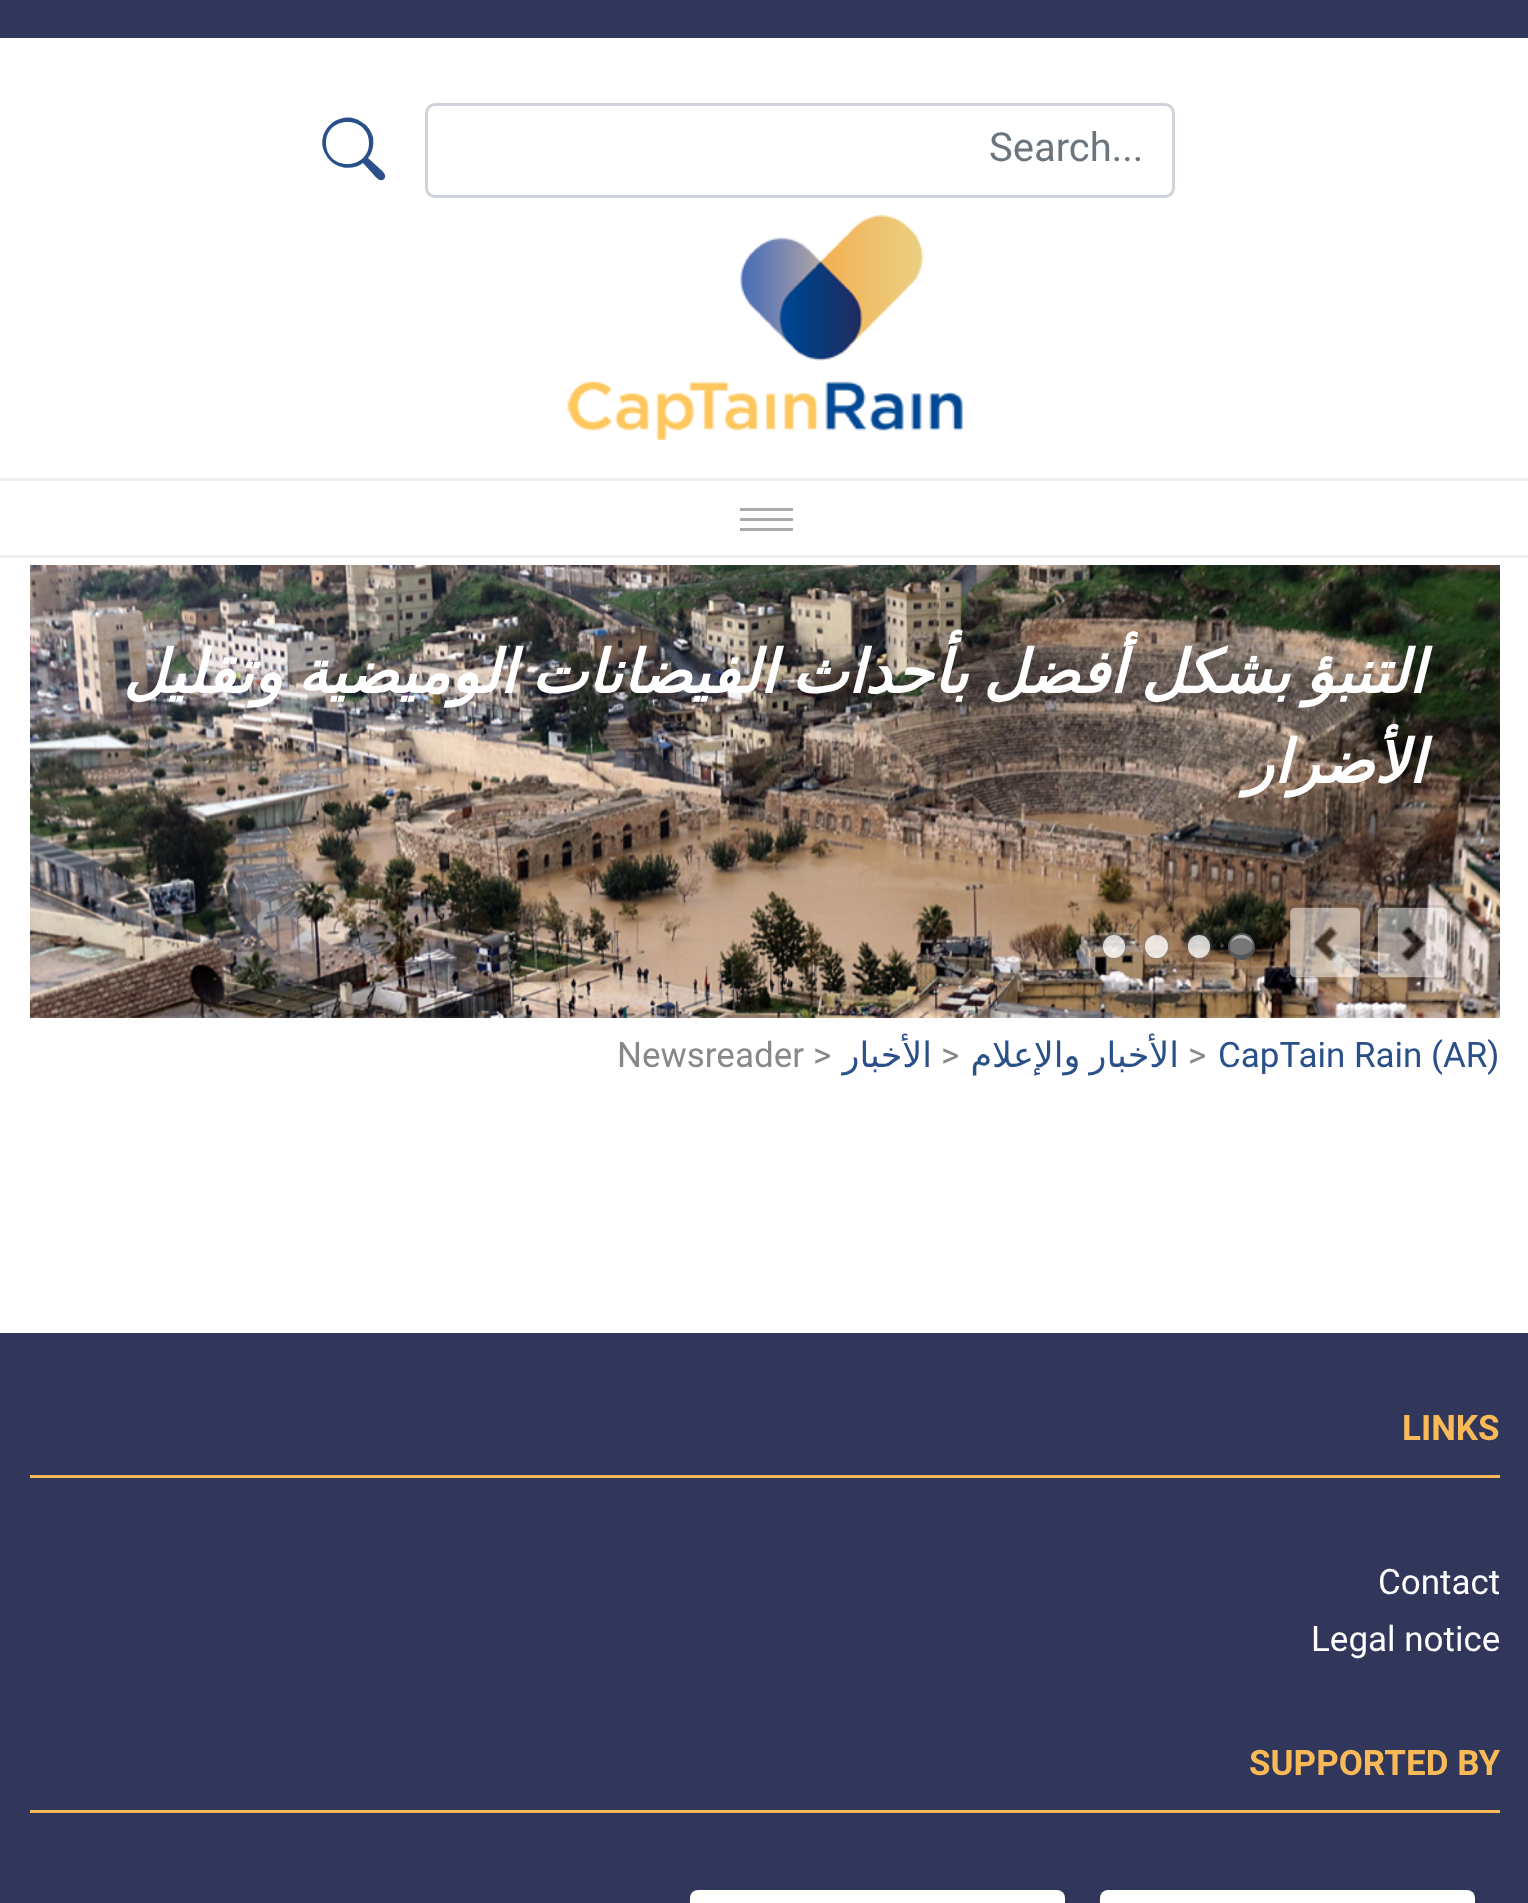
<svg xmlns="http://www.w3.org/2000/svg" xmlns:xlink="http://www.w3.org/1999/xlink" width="1528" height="1903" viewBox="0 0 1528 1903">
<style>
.cls-1{font:40px Roboto;fill:#6c757d}
.cls-2{font:italic bold 60px DejaVu Sans;direction:rtl;fill:#ffffff}
.cls-3{font:35px Roboto;fill:#2a5089}
.cls-4{font:35px Roboto;fill:#888888}
.cls-5{font:35px DejaVu Sans;direction:rtl;fill:#2a5089}
.cls-6{font:bold 35px Roboto;fill:#f9b957}
.cls-7{font:35px Roboto;fill:#ffffff}
</style>
<defs>
<clipPath id="clip1"><path d="M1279 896H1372V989H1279ZM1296 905H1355C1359.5 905 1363 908.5 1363 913V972C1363 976.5 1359.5 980 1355 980H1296C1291.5 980 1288 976.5 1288 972V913C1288 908.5 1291.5 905 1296 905Z" clip-rule="evenodd"/></clipPath>
<clipPath id="clip2"><path d="M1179 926H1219V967H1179ZM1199 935C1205 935 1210 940 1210 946V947C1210 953 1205 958 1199 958C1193 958 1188 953 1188 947V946C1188 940 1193 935 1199 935Z" clip-rule="evenodd"/></clipPath>
<clipPath id="clip3"><path d="M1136 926H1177V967H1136ZM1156.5 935C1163 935 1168 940 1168 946.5C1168 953 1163 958 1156.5 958C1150 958 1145 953 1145 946.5C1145 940 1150 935 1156.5 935Z" clip-rule="evenodd"/></clipPath>
<clipPath id="clip4"><path d="M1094 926H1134V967H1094ZM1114 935C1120 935 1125 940 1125 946V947C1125 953 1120 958 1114 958C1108 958 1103 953 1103 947V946C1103 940 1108 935 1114 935Z" clip-rule="evenodd"/></clipPath>
</defs>
<rect width="100%" height="100%" fill="#ffffff"/>
<rect fill="#30375a" x="0" y="0" width="1528" height="38"/>
<rect fill="none" stroke="#ced4da" stroke-width="3" x="426.5" y="104.5" width="747" height="92" rx="8.5"/>
<path fill="#2a5089" d="M368 158C373 152 374 144 373 137C371 131 368 126 363 123C341 106 312 132 326 155C333 168 351 172 363 163L373 174C375 176 380 183 384 179C388 175 381 170 379 168ZM369 143C369 171 326 171 326 143C326 115 369 115 369 143Z"/>
<image xlink:href="image0.png" x="567" y="215" width="396" height="225"/>
<rect fill="#efefef" x="0" y="478" width="1528" height="3"/>
<rect fill="#efefef" x="0" y="555" width="1528" height="3"/>
<rect fill="#aaaaaa" x="740" y="508" width="53" height="3"/>
<rect fill="#aaaaaa" x="740" y="518" width="53" height="3"/>
<rect fill="#aaaaaa" x="740" y="528" width="53" height="3"/>
<image xlink:href="image1.png" x="30" y="565" width="1470" height="453"/>
<image xlink:href="image2.png" x="1377" y="907" width="71" height="71"/>
<rect fill="none" stroke="#000000" stroke-opacity="0.1" stroke-width="3" x="1376.5" y="906.5" width="72" height="72" rx="6.5"/>
<g clip-path="url(#clip1)">
<rect fill="#000000" fill-opacity="0.1" filter="blur(2.5px)" x="1288" y="905" width="75" height="75" rx="8"/>
</g>
<image xlink:href="image3.png" x="1290" y="907" width="70" height="71"/>
<rect fill="none" stroke="#000000" stroke-opacity="0.1" stroke-width="3" x="1289.5" y="906.5" width="72" height="72" rx="6.5"/>
<circle fill="none" stroke="#555555" stroke-width="3" cx="1241.5" cy="946.5" r="12"/>
<circle fill="#777777" cx="1241.5" cy="946.5" r="11.5"/>
<path fill="#000000" fill-opacity="0.3" d="M1253 948.5C1248.5 956 1236.5 957.5 1231 950.5C1235 961.5 1251 960 1253 948.5Z"/>
<path fill="#ffffff" fill-opacity="0.5" d="M1241 938C1247 938 1251 941 1253 944.5C1251 933 1235 931.5 1231 942.5C1233 939.5 1236.5 938 1241 938Z"/>
<g clip-path="url(#clip2)">
<rect fill="#777777" filter="blur(2.5px)" x="1188" y="935" width="22" height="23" rx="11"/>
</g>
<rect fill="#ffffff" fill-opacity="0.8" x="1188" y="935" width="22" height="23" rx="11"/>
<g clip-path="url(#clip3)">
<rect fill="#777777" filter="blur(2.5px)" x="1145" y="935" width="23" height="23" rx="11.5"/>
</g>
<circle fill="#ffffff" fill-opacity="0.8" cx="1156.5" cy="946.5" r="11.5"/>
<g clip-path="url(#clip4)">
<rect fill="#777777" filter="blur(2.5px)" x="1103" y="935" width="22" height="23" rx="11"/>
</g>
<rect fill="#ffffff" fill-opacity="0.8" x="1103" y="935" width="22" height="23" rx="11"/>
<rect fill="#30375a" x="0" y="1333" width="1528" height="570"/>
<rect fill="#f9b957" x="30" y="1475" width="1470" height="3"/>
<rect fill="#f9b957" x="30" y="1810" width="1470" height="3"/>
<rect fill="#ffffff" x="1100" y="1890" width="375" height="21" rx="8"/>
<rect fill="#ffffff" x="690" y="1890" width="375" height="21" rx="8"/>
<text class="cls-1" x="989" y="161">Search...</text>
<text class="cls-2"><tspan x="1425" y="693" word-spacing="-4">التنبؤ بشكل أفضل بأحداث الفيضانات الوميضية وتقليل</tspan><tspan x="1425" y="783">الأضرار</tspan></text>
<text class="cls-3" x="1218" y="1067">CapTain Rain (AR)</text>
<text class="cls-4" x="1188" y="1067">&gt;</text>
<text class="cls-5" x="1179" y="1067" word-spacing="-2">الأخبار والإعلام</text>
<text class="cls-4" x="941" y="1067">&gt;</text>
<text class="cls-5" x="932" y="1067">الأخبار</text>
<text class="cls-4" x="813" y="1067">&gt;</text>
<text class="cls-4" x="617" y="1067">Newsreader</text>
<text class="cls-6" x="1402" y="1440">LINKS</text>
<text class="cls-7" x="1378" y="1594">Contact</text>
<text class="cls-7" x="1311" y="1651">Legal notice</text>
<text class="cls-6" x="1249" y="1775">SUPPORTED BY</text>
</svg>
